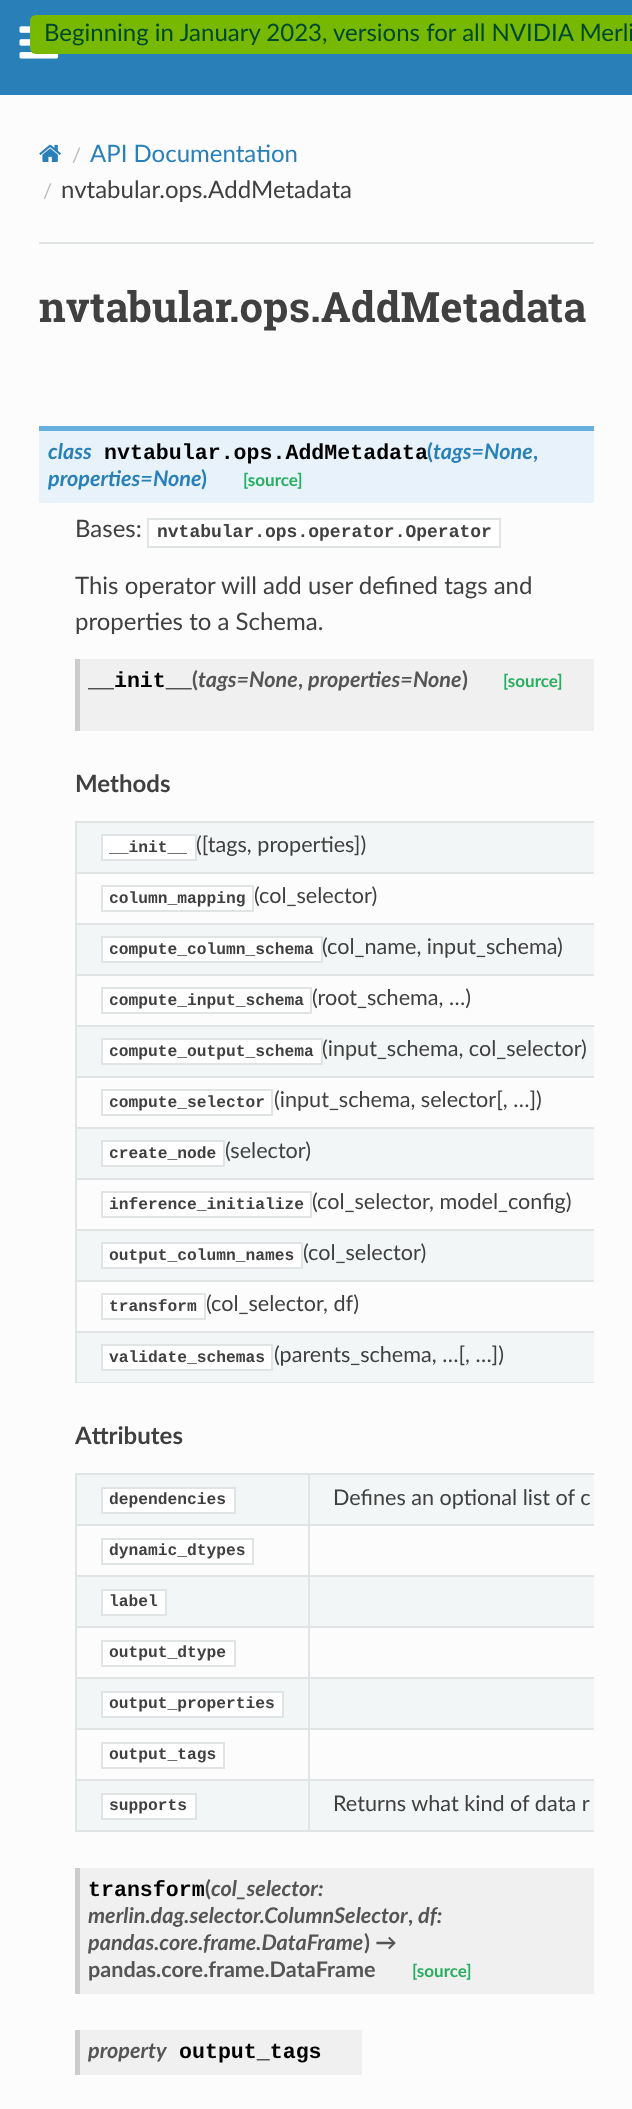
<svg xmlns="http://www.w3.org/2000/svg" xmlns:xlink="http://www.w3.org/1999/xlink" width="632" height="2109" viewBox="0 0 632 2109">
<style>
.cls-1{font:24px Lato;fill:#004831}
.cls-2{font:20px Lato;fill:#bbbbbb}
.cls-3{font:24px Lato;fill:#2980b9}
.cls-4{font:24px Lato;fill:#404040}
.cls-5{font:bold 42px Roboto Slab;fill:#404040}
.cls-6{font:italic bold 21.6px Lato;fill:#2980b9}
.cls-7{font:bold 21.6px Liberation Mono;fill:#000000}
.cls-8{font:bold 21.6px Lato;fill:#2980b9}
.cls-9{font:bold 17px Lato;fill:#27ae60}
.cls-10{font:bold 18px Liberation Mono;fill:#404040}
.cls-11{font:bold 21.6px Lato;fill:#555555}
.cls-12{font:italic bold 21.6px Lato;fill:#555555}
.cls-13{font:bold 24px Lato;fill:#404040}
.cls-14{font:bold 16.25px Liberation Mono;fill:#404040}
.cls-15{font:21.6px Lato;fill:#404040}
</style>
<rect width="100%" height="100%" fill="#fcfcfc"/>
<rect fill="#2980b9" x="0" y="0" width="632" height="95"/>
<image xlink:href="image0.png" x="19" y="26" width="40" height="33"/>
<rect fill="#76b900" x="30" y="15" width="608" height="39" rx="6"/>
<image xlink:href="image1.png" x="39" y="144" width="22" height="18"/>
<rect fill="#e1e4e5" x="39" y="242" width="555" height="2"/>
<rect fill="#e7f2fa" x="39" y="431" width="555" height="72"/>
<rect fill="#6ab0de" x="39" y="426" width="555" height="5"/>
<rect fill="#ffffff" stroke="#e1e4e5" stroke-width="2" x="148" y="519" width="352" height="28"/>
<rect fill="#f0f0f0" x="80" y="659" width="514" height="72"/>
<rect fill="#cccccc" x="75" y="659" width="5" height="72"/>
<rect fill="#e1e4e5" x="75" y="821" width="519" height="2"/>
<rect fill="#e1e4e5" x="75" y="1382" width="519" height="1"/>
<rect fill="#e1e4e5" x="75" y="821" width="2" height="562"/>
<rect fill="#f3f6f6" x="77" y="823" width="517" height="49"/>
<rect fill="#e1e4e5" x="75" y="872" width="519" height="2"/>
<rect fill="#ffffff" stroke="#e1e4e5" stroke-width="2" x="102" y="835" width="94" height="25"/>
<rect fill="#e1e4e5" x="75" y="923" width="519" height="2"/>
<rect fill="#ffffff" stroke="#e1e4e5" stroke-width="2" x="102" y="886" width="151" height="25"/>
<rect fill="#f3f6f6" x="77" y="925" width="517" height="49"/>
<rect fill="#e1e4e5" x="75" y="974" width="519" height="2"/>
<rect fill="#ffffff" stroke="#e1e4e5" stroke-width="2" x="102" y="937" width="220" height="25"/>
<rect fill="#e1e4e5" x="75" y="1025" width="519" height="2"/>
<rect fill="#ffffff" stroke="#e1e4e5" stroke-width="2" x="102" y="988" width="209" height="25"/>
<rect fill="#f3f6f6" x="77" y="1027" width="517" height="49"/>
<rect fill="#e1e4e5" x="75" y="1076" width="519" height="2"/>
<rect fill="#ffffff" stroke="#e1e4e5" stroke-width="2" x="102" y="1039" width="220" height="25"/>
<rect fill="#e1e4e5" x="75" y="1127" width="519" height="2"/>
<rect fill="#ffffff" stroke="#e1e4e5" stroke-width="2" x="102" y="1090" width="170" height="25"/>
<rect fill="#f3f6f6" x="77" y="1129" width="517" height="49"/>
<rect fill="#e1e4e5" x="75" y="1178" width="519" height="2"/>
<rect fill="#ffffff" stroke="#e1e4e5" stroke-width="2" x="102" y="1141" width="122" height="25"/>
<rect fill="#e1e4e5" x="75" y="1229" width="519" height="2"/>
<rect fill="#ffffff" stroke="#e1e4e5" stroke-width="2" x="102" y="1192" width="209" height="25"/>
<rect fill="#f3f6f6" x="77" y="1231" width="517" height="49"/>
<rect fill="#e1e4e5" x="75" y="1280" width="519" height="2"/>
<rect fill="#ffffff" stroke="#e1e4e5" stroke-width="2" x="102" y="1243" width="200" height="25"/>
<rect fill="#e1e4e5" x="75" y="1331" width="519" height="2"/>
<rect fill="#ffffff" stroke="#e1e4e5" stroke-width="2" x="102" y="1294" width="103" height="25"/>
<rect fill="#f3f6f6" x="77" y="1333" width="517" height="49"/>
<rect fill="#ffffff" stroke="#e1e4e5" stroke-width="2" x="102" y="1345" width="170" height="25"/>
<rect fill="#e1e4e5" x="75" y="1473" width="519" height="2"/>
<rect fill="#e1e4e5" x="75" y="1830" width="519" height="2"/>
<rect fill="#e1e4e5" x="75" y="1473" width="2" height="359"/>
<rect fill="#f3f6f6" x="77" y="1475" width="231" height="49"/>
<rect fill="#e1e4e5" x="308" y="1779" width="2" height="53"/>
<rect fill="#e1e4e5" x="308" y="1779" width="286" height="2"/>
<rect fill="#e1e4e5" x="308" y="1728" width="2" height="53"/>
<rect fill="#e1e4e5" x="308" y="1728" width="286" height="2"/>
<rect fill="#e1e4e5" x="308" y="1677" width="2" height="53"/>
<rect fill="#e1e4e5" x="308" y="1677" width="286" height="2"/>
<rect fill="#e1e4e5" x="308" y="1626" width="2" height="53"/>
<rect fill="#e1e4e5" x="308" y="1626" width="286" height="2"/>
<rect fill="#e1e4e5" x="308" y="1575" width="2" height="53"/>
<rect fill="#e1e4e5" x="308" y="1575" width="286" height="2"/>
<rect fill="#e1e4e5" x="308" y="1524" width="2" height="53"/>
<rect fill="#e1e4e5" x="308" y="1524" width="286" height="2"/>
<rect fill="#e1e4e5" x="308" y="1473" width="2" height="53"/>
<rect fill="#e1e4e5" x="75" y="1524" width="234" height="2"/>
<rect fill="#ffffff" stroke="#e1e4e5" stroke-width="2" x="102" y="1488" width="133" height="25"/>
<rect fill="#f3f6f6" x="310" y="1475" width="284" height="49"/>
<rect fill="#e1e4e5" x="75" y="1575" width="234" height="2"/>
<rect fill="#ffffff" stroke="#e1e4e5" stroke-width="2" x="102" y="1539" width="151" height="25"/>
<rect fill="#f3f6f6" x="77" y="1577" width="231" height="49"/>
<rect fill="#e1e4e5" x="75" y="1626" width="234" height="2"/>
<rect fill="#ffffff" stroke="#e1e4e5" stroke-width="2" x="102" y="1590" width="64" height="25"/>
<rect fill="#f3f6f6" x="310" y="1577" width="284" height="49"/>
<rect fill="#e1e4e5" x="75" y="1677" width="234" height="2"/>
<rect fill="#ffffff" stroke="#e1e4e5" stroke-width="2" x="102" y="1641" width="133" height="25"/>
<rect fill="#f3f6f6" x="77" y="1679" width="231" height="49"/>
<rect fill="#e1e4e5" x="75" y="1728" width="234" height="2"/>
<rect fill="#ffffff" stroke="#e1e4e5" stroke-width="2" x="102" y="1692" width="181" height="25"/>
<rect fill="#f3f6f6" x="310" y="1679" width="284" height="49"/>
<rect fill="#e1e4e5" x="75" y="1779" width="234" height="2"/>
<rect fill="#ffffff" stroke="#e1e4e5" stroke-width="2" x="102" y="1743" width="122" height="25"/>
<rect fill="#f3f6f6" x="77" y="1781" width="231" height="49"/>
<rect fill="#ffffff" stroke="#e1e4e5" stroke-width="2" x="102" y="1794" width="94" height="25"/>
<rect fill="#f3f6f6" x="310" y="1781" width="284" height="49"/>
<rect fill="#f0f0f0" x="80" y="1868" width="514" height="126"/>
<rect fill="#cccccc" x="75" y="1868" width="5" height="126"/>
<rect fill="#f0f0f0" x="80" y="2030" width="282" height="45"/>
<rect fill="#cccccc" x="75" y="2030" width="5" height="45"/>
<text class="cls-1" x="44" y="41">Beginning in January 2023, versions for all NVIDIA Merli</text>
<text class="cls-2" x="72" y="162">/</text>
<text class="cls-3" x="90" y="162">API Documentation</text>
<text class="cls-2" x="43" y="198">/</text>
<text class="cls-4" x="61" y="198">nvtabular.ops.AddMetadata</text>
<text class="cls-5" x="39" y="322">nvtabular.ops.AddMetadata</text>
<text class="cls-6" x="48" y="459">class</text>
<text class="cls-7" x="104" y="459">nvtabular.ops.AddMetadata</text>
<text class="cls-8" x="427" y="459">(</text>
<text class="cls-6" x="433" y="459">tags=None</text>
<text class="cls-8" x="533" y="459">,</text>
<text class="cls-6" x="48" y="486">properties=None</text>
<text class="cls-8" x="201" y="486">)</text>
<text class="cls-9" x="243" y="486">[source]</text>
<text class="cls-4" x="75" y="537">Bases:</text>
<text class="cls-10" x="157" y="537">nvtabular.ops.operator.Operator</text>
<text class="cls-4"><tspan x="75" y="594">This operator will add user defined tags and</tspan><tspan x="75" y="630">properties to a Schema.</tspan></text>
<text class="cls-7" x="88" y="687">__init__</text>
<text class="cls-11" x="192" y="687">(</text>
<text class="cls-12" x="198" y="687">tags=None</text>
<text class="cls-11" x="298" y="687">,</text>
<text class="cls-12" x="308" y="687">properties=None</text>
<text class="cls-11" x="462" y="687">)</text>
<text class="cls-9" x="503" y="687">[source]</text>
<text class="cls-13" x="75" y="792">Methods</text>
<text class="cls-14" x="109" y="852">__init__</text>
<text class="cls-15" x="196" y="852">([tags, properties])</text>
<text class="cls-14" x="109" y="903">column_mapping</text>
<text class="cls-15" x="254" y="903">(col_selector)</text>
<text class="cls-14" x="109" y="954">compute_column_schema</text>
<text class="cls-15" x="322" y="954">(col_name, input_schema)</text>
<text class="cls-14" x="109" y="1005">compute_input_schema</text>
<text class="cls-15" x="312" y="1005">(root_schema, …)</text>
<text class="cls-14" x="109" y="1056">compute_output_schema</text>
<text class="cls-15" x="322" y="1056">(input_schema, col_selector)</text>
<text class="cls-14" x="109" y="1107">compute_selector</text>
<text class="cls-15" x="274" y="1107">(input_schema, selector[, …])</text>
<text class="cls-14" x="109" y="1158">create_node</text>
<text class="cls-15" x="225" y="1158">(selector)</text>
<text class="cls-14" x="109" y="1209">inference_initialize</text>
<text class="cls-15" x="312" y="1209">(col_selector, model_config)</text>
<text class="cls-14" x="109" y="1260">output_column_names</text>
<text class="cls-15" x="303" y="1260">(col_selector)</text>
<text class="cls-14" x="109" y="1311">transform</text>
<text class="cls-15" x="206" y="1311">(col_selector, df)</text>
<text class="cls-14" x="109" y="1362">validate_schemas</text>
<text class="cls-15" x="274" y="1362">(parents_schema, …[, …])</text>
<text class="cls-13" x="75" y="1444">Attributes</text>
<text class="cls-14" x="109" y="1504">dependencies</text>
<text class="cls-15" x="333" y="1505">Defines an optional list of c</text>
<text class="cls-14" x="109" y="1555">dynamic_dtypes</text>
<text class="cls-14" x="109" y="1606">label</text>
<text class="cls-14" x="109" y="1657">output_dtype</text>
<text class="cls-14" x="109" y="1708">output_properties</text>
<text class="cls-14" x="109" y="1759">output_tags</text>
<text class="cls-14" x="109" y="1810">supports</text>
<text class="cls-15" x="333" y="1811">Returns what kind of data r</text>
<text class="cls-7" x="88" y="1896">transform</text>
<text class="cls-11" x="205" y="1896">(</text>
<text class="cls-12" x="211" y="1896">col_selector:</text>
<text class="cls-12" x="88" y="1923">merlin.dag.selector.ColumnSelector</text>
<text class="cls-11" x="408" y="1923">,</text>
<text class="cls-12" x="418" y="1923">df:</text>
<text class="cls-12" x="88" y="1950">pandas.core.frame.DataFrame</text>
<text class="cls-11" x="364" y="1950">) →</text>
<text class="cls-11" x="88" y="1977">pandas.core.frame.DataFrame</text>
<text class="cls-9" x="412" y="1977">[source]</text>
<text class="cls-12" x="88" y="2058">property</text>
<text class="cls-7" x="179" y="2058">output_tags</text>
</svg>
